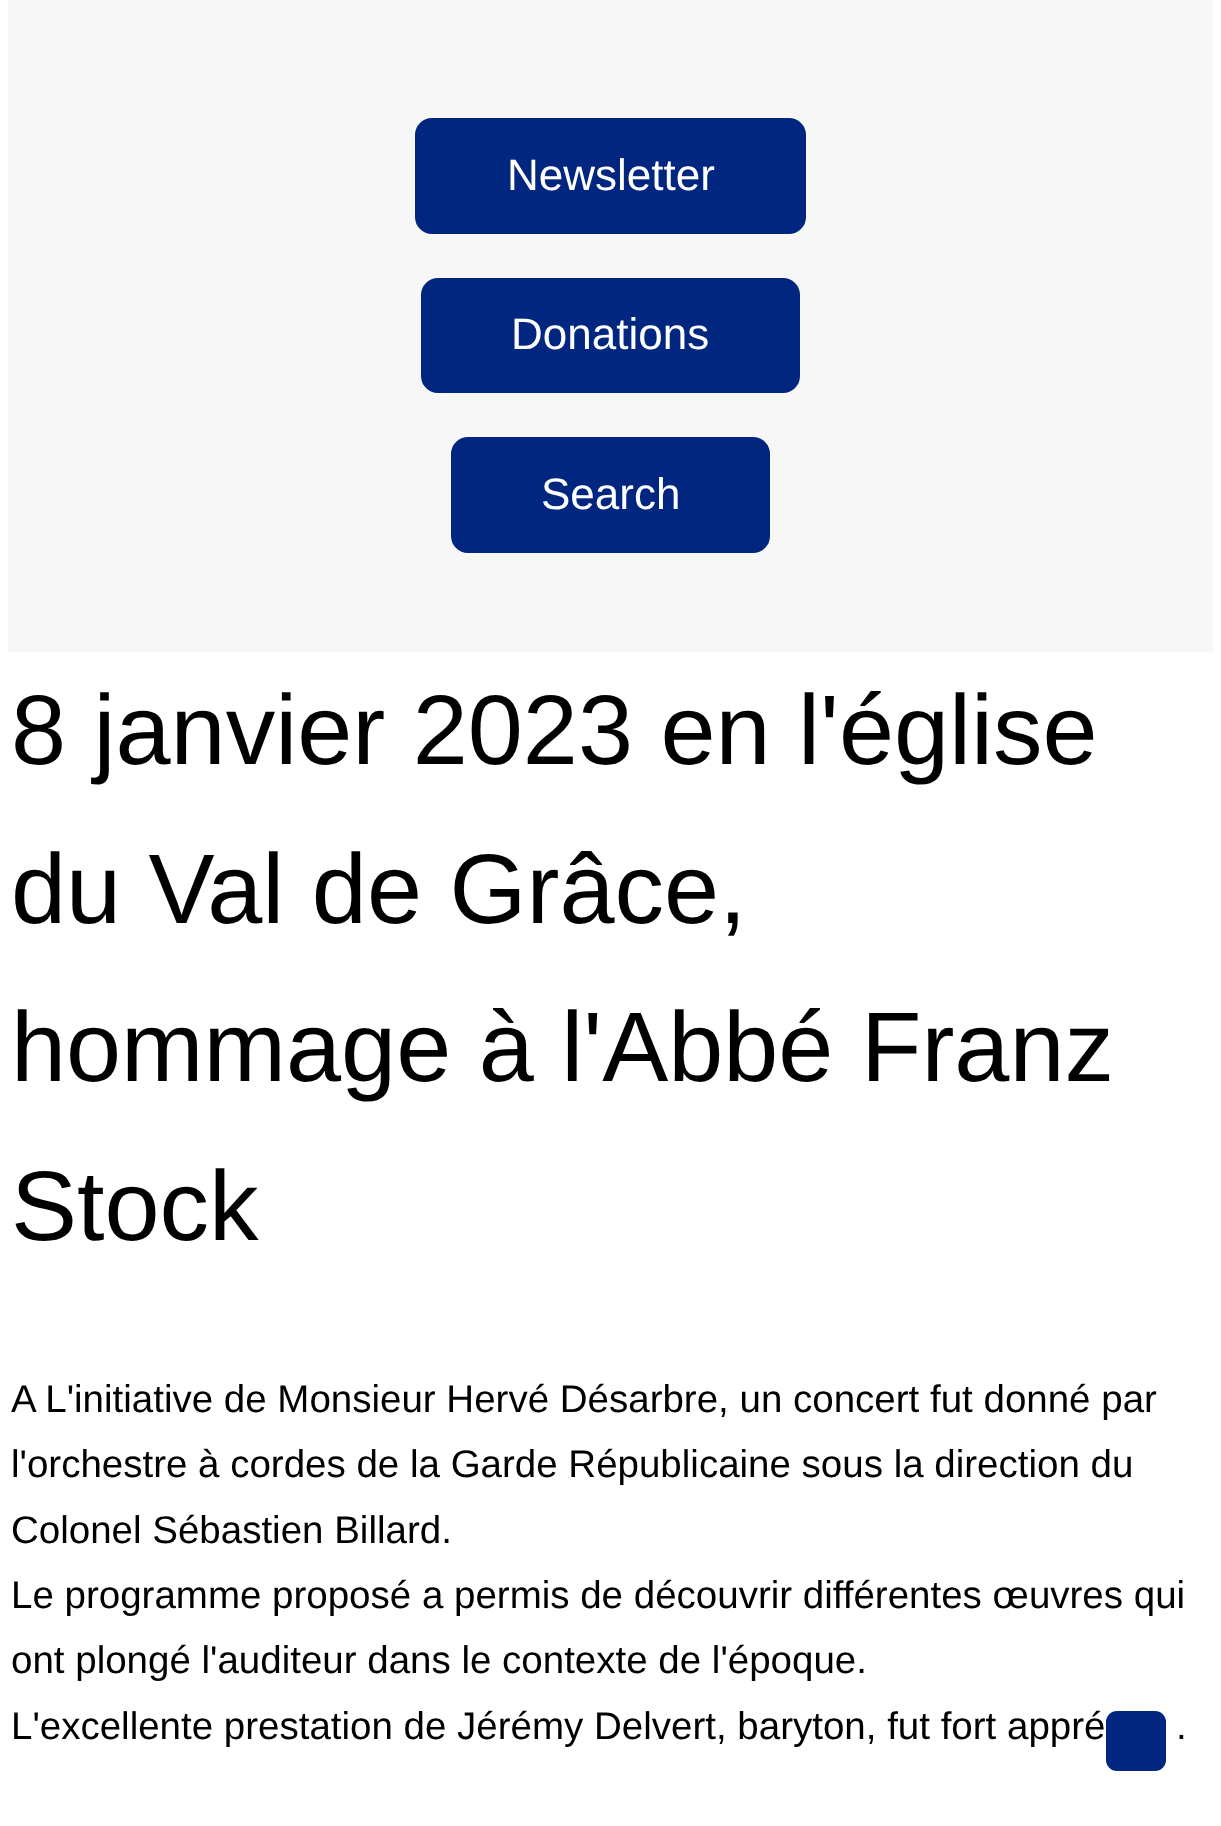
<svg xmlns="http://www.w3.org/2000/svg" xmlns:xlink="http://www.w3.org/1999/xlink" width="1221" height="1826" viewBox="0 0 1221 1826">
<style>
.cls-1{font:44px Liberation Sans;fill:#ffffff}
.cls-2{font:99px Liberation Sans;fill:#000000}
.cls-3{font:38.5px Liberation Sans;fill:#000000}
</style>
<rect width="100%" height="100%" fill="#ffffff"/>
<rect fill="#f7f7f7" x="8" y="0" width="1205" height="652"/>
<rect fill="#002680" stroke="#002680" stroke-width="3" x="416.5" y="119.5" width="388" height="113" rx="15.5"/>
<rect fill="#002680" stroke="#002680" stroke-width="3" x="422.5" y="279.5" width="376" height="112" rx="15.5"/>
<rect fill="#002680" stroke="#002680" stroke-width="3" x="452.5" y="438.5" width="316" height="113" rx="15.5"/>
<rect fill="#002680" x="1106" y="1711" width="60" height="60" rx="11"/>
<text class="cls-1" x="507" y="190">Newsletter</text>
<text class="cls-1" x="511" y="349">Donations</text>
<text class="cls-1" x="541" y="509">Search</text>
<text class="cls-2"><tspan x="11" y="764">8 janvier 2023 en l'église</tspan><tspan x="11" y="923">du Val de Grâce,</tspan><tspan x="11" y="1081">hommage à l'Abbé Franz</tspan><tspan x="11" y="1240">Stock</tspan></text>
<text class="cls-3"><tspan x="11" y="1412">A L'initiative de Monsieur Hervé Désarbre, un concert fut donné par</tspan><tspan x="11" y="1477">l'orchestre à cordes de la Garde Républicaine sous la direction du</tspan><tspan x="11" y="1543">Colonel Sébastien Billard.</tspan><tspan x="11" y="1608">Le programme proposé a permis de découvrir différentes œuvres qui</tspan><tspan x="11" y="1673">ont plongé l'auditeur dans le contexte de l'époque.</tspan><tspan x="11" y="1739">L'excellente prestation de Jérémy Delvert, baryton, fut fort appré</tspan></text>
<text class="cls-3" x="1176" y="1739">.</text>
</svg>
